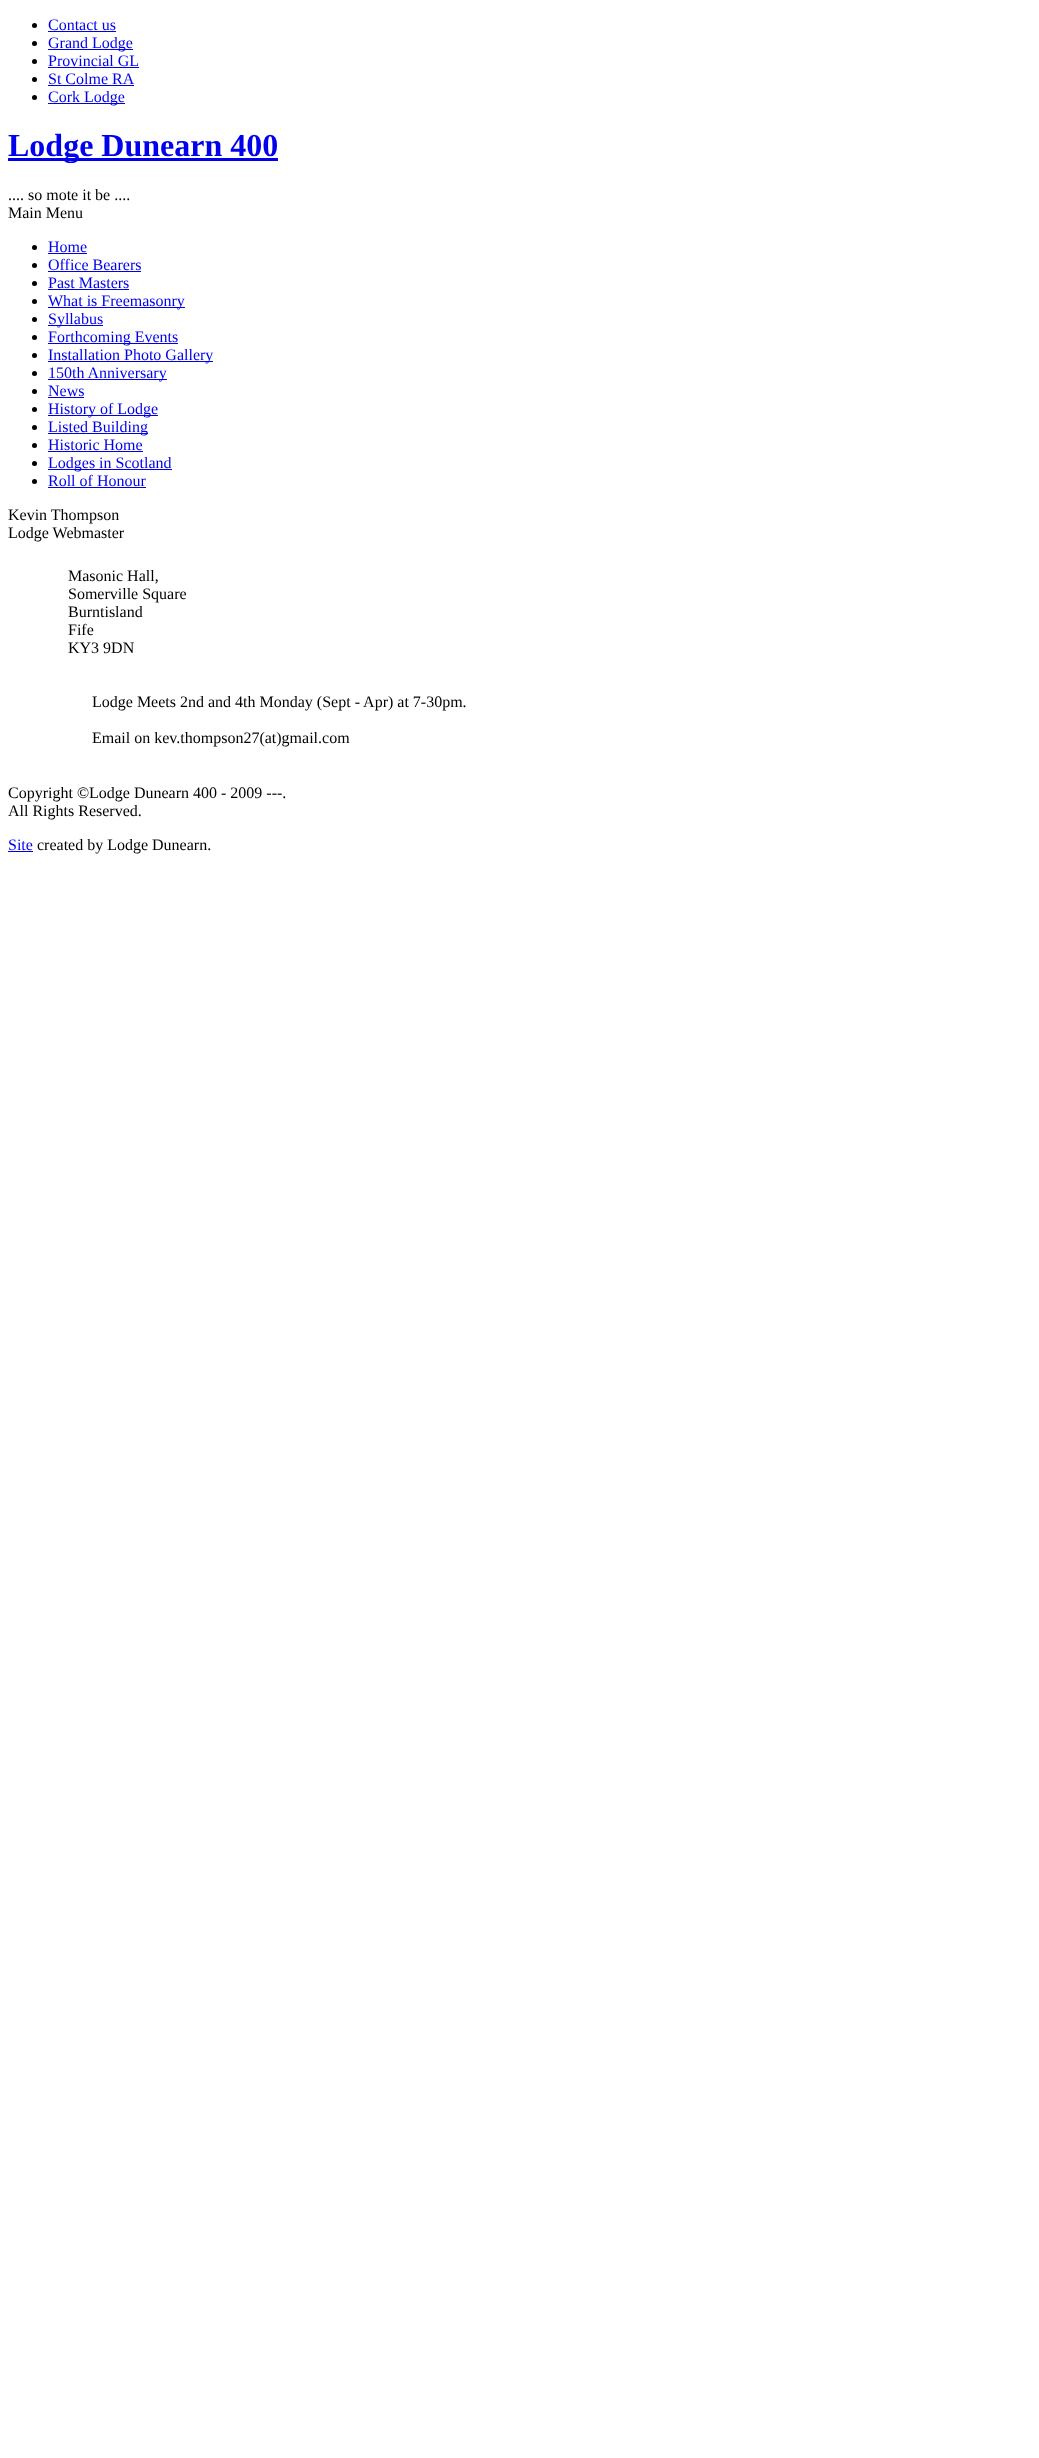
<svg xmlns="http://www.w3.org/2000/svg" xmlns:xlink="http://www.w3.org/1999/xlink" width="1039" height="2458" viewBox="0 0 1039 2458">
<style>
.cls-1{font:16px Liberation Serif;fill:#0000ee}
.cls-2{font:bold 32px Liberation Serif;fill:#0000ee}
.cls-3{font:16px Liberation Serif;fill:#000000}
</style>
<rect width="100%" height="100%" fill="#ffffff"/>
<circle fill="#000000" cx="34.5" cy="25.5" r="2.5"/>
<rect fill="#0000ee" x="48" y="31" width="68" height="1"/>
<circle fill="#000000" cx="34.5" cy="43.5" r="2.5"/>
<rect fill="#0000ee" x="48" y="49" width="85" height="1"/>
<circle fill="#000000" cx="34.5" cy="61.5" r="2.5"/>
<rect fill="#0000ee" x="48" y="67" width="91" height="1"/>
<circle fill="#000000" cx="34.5" cy="79.5" r="2.5"/>
<rect fill="#0000ee" x="48" y="85" width="86" height="1"/>
<circle fill="#000000" cx="34.5" cy="97.5" r="2.5"/>
<rect fill="#0000ee" x="48" y="103" width="77" height="1"/>
<rect fill="#0000ee" x="8" y="158" width="270" height="3"/>
<circle fill="#000000" cx="34.5" cy="247.5" r="2.5"/>
<rect fill="#0000ee" x="48" y="253" width="39" height="1"/>
<circle fill="#000000" cx="34.5" cy="265.5" r="2.5"/>
<rect fill="#0000ee" x="48" y="271" width="93" height="1"/>
<circle fill="#000000" cx="34.5" cy="283.5" r="2.5"/>
<rect fill="#0000ee" x="48" y="289" width="81" height="1"/>
<circle fill="#000000" cx="34.5" cy="301.5" r="2.5"/>
<rect fill="#0000ee" x="48" y="307" width="137" height="1"/>
<circle fill="#000000" cx="34.5" cy="319.5" r="2.5"/>
<rect fill="#0000ee" x="48" y="325" width="55" height="1"/>
<circle fill="#000000" cx="34.5" cy="337.5" r="2.5"/>
<rect fill="#0000ee" x="48" y="343" width="130" height="1"/>
<circle fill="#000000" cx="34.5" cy="355.5" r="2.5"/>
<rect fill="#0000ee" x="48" y="361" width="165" height="1"/>
<circle fill="#000000" cx="34.5" cy="373.5" r="2.5"/>
<rect fill="#0000ee" x="48" y="379" width="119" height="1"/>
<circle fill="#000000" cx="34.5" cy="391.5" r="2.5"/>
<rect fill="#0000ee" x="48" y="397" width="36" height="1"/>
<circle fill="#000000" cx="34.5" cy="409.5" r="2.5"/>
<rect fill="#0000ee" x="48" y="415" width="110" height="1"/>
<circle fill="#000000" cx="34.5" cy="427.5" r="2.5"/>
<rect fill="#0000ee" x="48" y="433" width="100" height="1"/>
<circle fill="#000000" cx="34.5" cy="445.5" r="2.5"/>
<rect fill="#0000ee" x="48" y="451" width="95" height="1"/>
<circle fill="#000000" cx="34.5" cy="463.5" r="2.5"/>
<rect fill="#0000ee" x="48" y="469" width="124" height="1"/>
<circle fill="#000000" cx="34.5" cy="481.5" r="2.5"/>
<rect fill="#0000ee" x="48" y="487" width="98" height="1"/>
<rect fill="#0000ee" x="8" y="851" width="25" height="1"/>
<text class="cls-1"><tspan x="48" y="30">Contact us</tspan><tspan x="48" y="48">Grand Lodge</tspan><tspan x="48" y="66">Provincial GL</tspan><tspan x="48" y="84">St Colme RA</tspan><tspan x="48" y="102">Cork Lodge</tspan></text>
<text class="cls-2" x="8" y="156">Lodge Dunearn 400</text>
<text class="cls-3"><tspan x="8" y="200">.... so mote it be ....</tspan><tspan x="8" y="218">Main Menu</tspan></text>
<text class="cls-1"><tspan x="48" y="252">Home</tspan><tspan x="48" y="270">Office Bearers</tspan><tspan x="48" y="288">Past Masters</tspan><tspan x="48" y="306">What is Freemasonry</tspan><tspan x="48" y="324">Syllabus</tspan><tspan x="48" y="342">Forthcoming Events</tspan><tspan x="48" y="360">Installation Photo Gallery</tspan><tspan x="48" y="378">150th Anniversary</tspan><tspan x="48" y="396">News</tspan><tspan x="48" y="414">History of Lodge</tspan><tspan x="48" y="432">Listed Building</tspan><tspan x="48" y="450">Historic Home</tspan><tspan x="48" y="468">Lodges in Scotland</tspan><tspan x="48" y="486">Roll of Honour</tspan></text>
<text class="cls-3"><tspan x="8" y="520">Kevin Thompson</tspan><tspan x="8" y="538">Lodge Webmaster</tspan></text>
<text class="cls-3"><tspan x="68" y="581">Masonic Hall,</tspan><tspan x="68" y="599">Somerville Square</tspan><tspan x="68" y="617">Burntisland</tspan><tspan x="68" y="635">Fife</tspan><tspan x="68" y="653">KY3 9DN</tspan></text>
<text class="cls-3" x="92" y="707">Lodge Meets 2nd and 4th Monday (Sept - Apr) at 7-30pm.</text>
<text class="cls-3" x="92" y="743">Email on kev.thompson27(at)gmail.com</text>
<text class="cls-3"><tspan x="8" y="798">Copyright ©Lodge Dunearn 400 - 2009 ---.</tspan><tspan x="8" y="816">All Rights Reserved.</tspan></text>
<text class="cls-1" x="8" y="850">Site</text>
<text class="cls-3" x="37" y="850">created by Lodge Dunearn.</text>
</svg>
